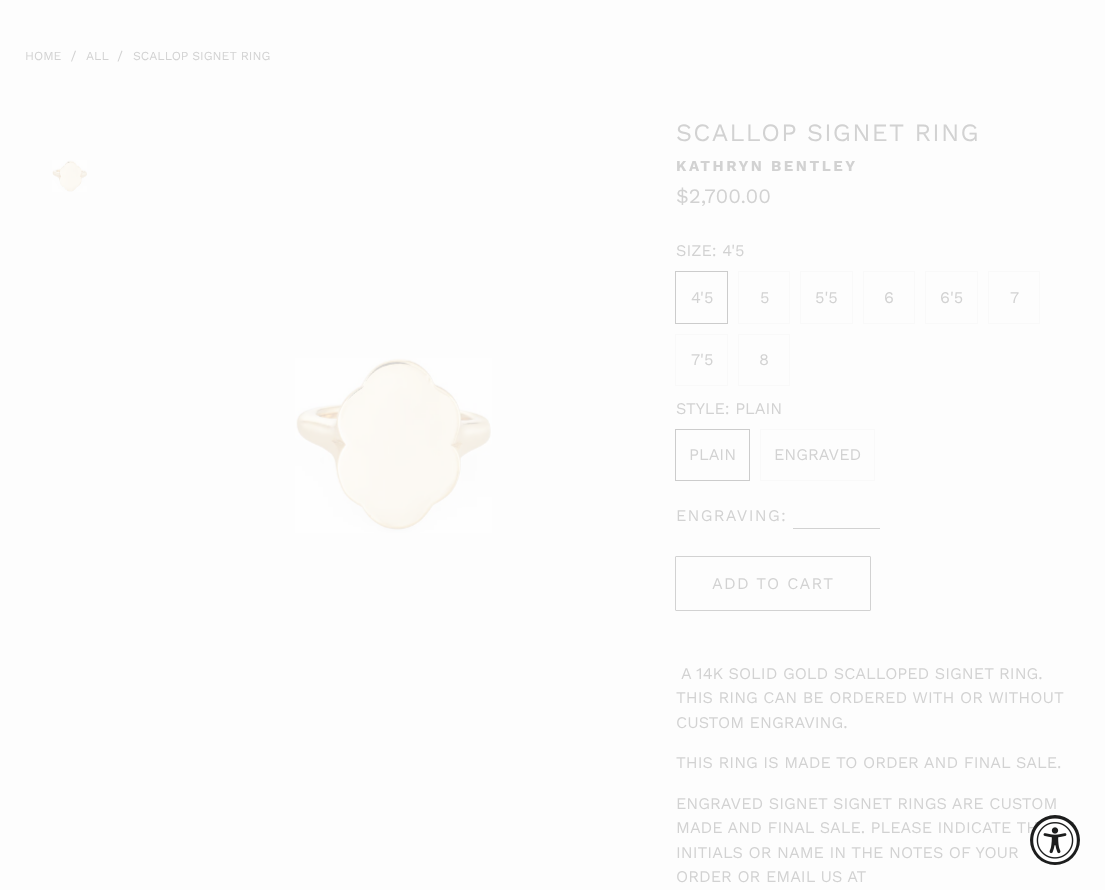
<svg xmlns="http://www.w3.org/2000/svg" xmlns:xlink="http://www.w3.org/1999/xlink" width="1105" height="890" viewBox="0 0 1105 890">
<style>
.cls-1{font:12.25px Work Sans;fill:#d2d2d2}
.cls-2{font:25px Work Sans;letter-spacing:1.25px;fill:#d2d2d2}
.cls-3{font:bold 15px Work Sans;letter-spacing:2.5px;fill:#d2d2d2}
.cls-4{font:20.5px Work Sans;fill:#d2d2d2}
.cls-5{font:16.25px Work Sans;fill:#d2d2d2}
.cls-6{font:16.25px Work Sans;letter-spacing:1.25px;fill:#d2d2d2}
</style>
<rect width="100%" height="100%" fill="#fdfdfd"/>
<path fill="#d2d2d2" d="M71 61.5L75 50.5L76 51L72 61.5ZM117.5 61.5L121.5 50.5L122.5 51L118.5 61.5Z"/>
<image xlink:href="image0.png" x="52" y="160" width="35" height="32"/>
<image xlink:href="image1.png" x="295" y="358" width="197" height="175"/>
<rect fill="none" stroke="#cccccc" x="675.5" y="271.5" width="52" height="52"/>
<rect fill="none" stroke="#f9f9f9" x="738.5" y="271.5" width="51" height="52"/>
<rect fill="none" stroke="#f9f9f9" x="800.5" y="271.5" width="52" height="52"/>
<rect fill="none" stroke="#f9f9f9" x="863.5" y="271.5" width="51" height="52"/>
<rect fill="none" stroke="#f9f9f9" x="925.5" y="271.5" width="52" height="52"/>
<rect fill="none" stroke="#f9f9f9" x="988.5" y="271.5" width="51" height="52"/>
<rect fill="none" stroke="#f9f9f9" x="675.5" y="334.5" width="52" height="51"/>
<rect fill="none" stroke="#f9f9f9" x="738.5" y="334.5" width="51" height="51"/>
<rect fill="none" stroke="#cccccc" x="675.5" y="429.5" width="74" height="51"/>
<rect fill="none" stroke="#f9f9f9" x="760.5" y="429.5" width="114" height="51"/>
<rect fill="#d2d2d2" x="793" y="528" width="87" height="1"/>
<rect fill="none" stroke="#d2d2d2" x="675.5" y="556.5" width="195" height="54" rx="0.5"/>
<text class="cls-1" x="25" y="60">HOME</text>
<text class="cls-1" x="86" y="60">ALL</text>
<text class="cls-1" x="133" y="60">SCALLOP SIGNET RING</text>
<text class="cls-2" x="676" y="141">SCALLOP SIGNET RING</text>
<text class="cls-3" x="676" y="171">KATHRYN BENTLEY</text>
<text class="cls-4" x="676" y="203">$2,700.00</text>
<text class="cls-5" x="676" y="256">SIZE: 4'5</text>
<text class="cls-5" x="691" y="303">4'5</text>
<text class="cls-5" x="760" y="303">5</text>
<text class="cls-5" x="815" y="303">5'5</text>
<text class="cls-5" x="884" y="303">6</text>
<text class="cls-5" x="940" y="303">6'5</text>
<text class="cls-5" x="1010" y="303">7</text>
<text class="cls-5" x="691" y="365">7'5</text>
<text class="cls-5" x="759" y="365">8</text>
<text class="cls-5" x="676" y="414">STYLE: PLAIN</text>
<text class="cls-5" x="689" y="460">PLAIN</text>
<text class="cls-5" x="774" y="460">ENGRAVED</text>
<text class="cls-6" x="676" y="521">ENGRAVING:</text>
<text class="cls-6" x="712" y="589">ADD TO CART</text>
<text class="cls-5" x="681" y="679">A 14K SOLID GOLD SCALLOPED SIGNET RING.</text>
<text class="cls-5"><tspan x="676" y="703">THIS RING CAN BE ORDERED WITH OR WITHOUT</tspan><tspan x="676" y="728">CUSTOM ENGRAVING.</tspan></text>
<text class="cls-5" x="676" y="768">THIS RING IS MADE TO ORDER AND FINAL SALE.</text>
<text class="cls-5"><tspan x="676" y="809">ENGRAVED SIGNET SIGNET RINGS ARE CUSTOM</tspan><tspan x="676" y="833">MADE AND FINAL SALE. PLEASE INDICATE TH</tspan><tspan x="676" y="858">INITIALS OR NAME IN THE NOTES OF YOUR</tspan><tspan x="676" y="882">ORDER OR EMAIL US AT</tspan></text>
<circle fill="#1c1d1d" cx="1055" cy="840" r="25"/>
<image xlink:href="image2.png" x="1033" y="818" width="44" height="45"/>
</svg>
